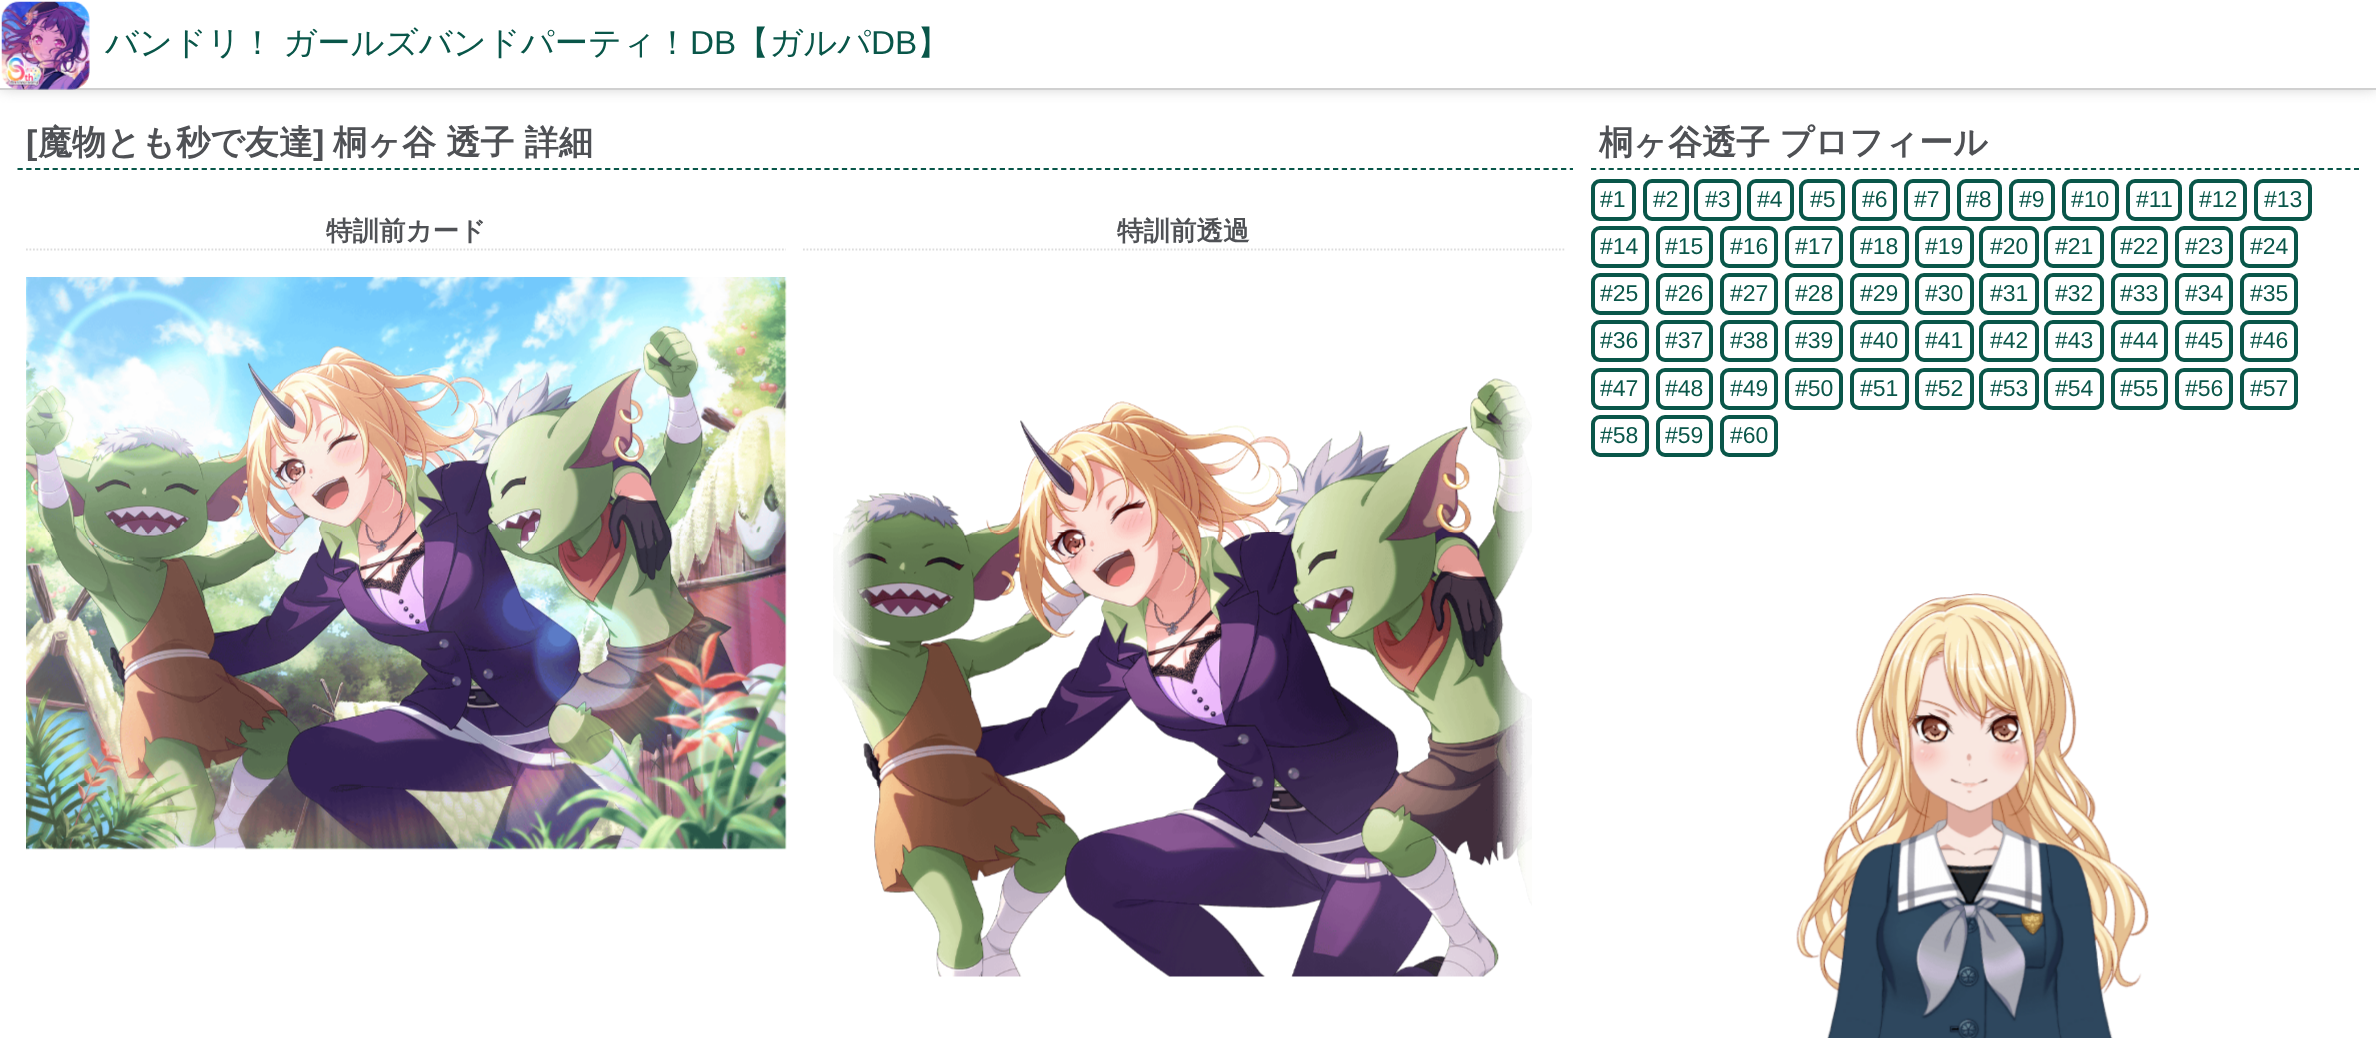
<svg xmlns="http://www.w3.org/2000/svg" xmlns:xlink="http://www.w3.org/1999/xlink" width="2376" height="1038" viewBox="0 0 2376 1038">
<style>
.cls-1{font:500 33.25px WenQuanYi Zen Hei;fill:#095649}
.cls-2{font:33.25px Liberation Sans;fill:#095649}
.cls-3{font:bold 34.1px Liberation Sans;fill:#4f5155}
.cls-4{font:bold 34.1px WenQuanYi Zen Hei;fill:#4f5155}
.cls-5{font:bold 26.5px WenQuanYi Zen Hei;fill:#4f5155}
.cls-6{font:23px Liberation Sans;fill:#095649}
</style>
<defs>
<clipPath id="clip1"><rect x="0" y="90" width="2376" height="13"/></clipPath>
</defs>
<rect width="100%" height="100%" fill="#ffffff"/>
<g clip-path="url(#clip1)">
<rect fill="#d0d0d0" filter="blur(7px)" x="0" y="0" width="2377" height="89"/>
</g>
<rect fill="#d0d0d0" x="0" y="88" width="2376" height="2"/>
<image xlink:href="image0.png" x="1" y="1" width="89" height="89"/>
<path fill="none" stroke="#095649" stroke-width="1.8" stroke-dasharray="5.25 3.52" d="M17.5 169H1573"/>
<path fill="none" stroke="#dddddd" stroke-width="1.8" stroke-dasharray="1.75 1.75" d="M26 249.5H786"/>
<image xlink:href="image1.png" x="26" y="277" width="761" height="573"/>
<path fill="none" stroke="#dddddd" stroke-width="1.8" stroke-dasharray="1.75 1.75" d="M803 249.5H1564.5"/>
<image xlink:href="image2.png" x="833" y="378" width="699" height="599"/>
<path fill="none" stroke="#095649" stroke-width="1.8" stroke-dasharray="5.25 3.52" d="M1591 169H2359"/>
<rect fill="none" stroke="#095649" stroke-width="4" x="1593" y="181" width="41" height="38" rx="7"/>
<rect fill="none" stroke="#095649" stroke-width="4" x="1645" y="181" width="42" height="38" rx="7"/>
<rect fill="none" stroke="#095649" stroke-width="4" x="1696" y="181" width="43" height="38" rx="7"/>
<rect fill="none" stroke="#095649" stroke-width="4" x="1749" y="181" width="43" height="38" rx="7"/>
<rect fill="none" stroke="#095649" stroke-width="4" x="1801" y="181" width="42" height="38" rx="7"/>
<rect fill="none" stroke="#095649" stroke-width="4" x="1854" y="181" width="41" height="38" rx="7"/>
<rect fill="none" stroke="#095649" stroke-width="4" x="1906" y="181" width="42" height="38" rx="7"/>
<rect fill="none" stroke="#095649" stroke-width="4" x="1959" y="181" width="41" height="38" rx="7"/>
<rect fill="none" stroke="#095649" stroke-width="4" x="2011" y="181" width="42" height="38" rx="7"/>
<rect fill="none" stroke="#095649" stroke-width="4" x="2064" y="181" width="53" height="38" rx="7"/>
<rect fill="none" stroke="#095649" stroke-width="4" x="2128" y="181" width="52" height="38" rx="7"/>
<rect fill="none" stroke="#095649" stroke-width="4" x="2191" y="181" width="54" height="38" rx="7"/>
<rect fill="none" stroke="#095649" stroke-width="4" x="2256" y="181" width="54" height="38" rx="7"/>
<rect fill="none" stroke="#095649" stroke-width="4" x="1593" y="228" width="54" height="38" rx="7"/>
<rect fill="none" stroke="#095649" stroke-width="4" x="1658" y="228" width="53" height="38" rx="7"/>
<rect fill="none" stroke="#095649" stroke-width="4" x="1722" y="228" width="54" height="38" rx="7"/>
<rect fill="none" stroke="#095649" stroke-width="4" x="1787" y="228" width="54" height="38" rx="7"/>
<rect fill="none" stroke="#095649" stroke-width="4" x="1852" y="228" width="55" height="38" rx="7"/>
<rect fill="none" stroke="#095649" stroke-width="4" x="1917" y="228" width="55" height="38" rx="7"/>
<rect fill="none" stroke="#095649" stroke-width="4" x="1981" y="228" width="56" height="38" rx="7"/>
<rect fill="none" stroke="#095649" stroke-width="4" x="2046" y="228" width="56" height="38" rx="7"/>
<rect fill="none" stroke="#095649" stroke-width="4" x="2113" y="228" width="53" height="38" rx="7"/>
<rect fill="none" stroke="#095649" stroke-width="4" x="2177" y="228" width="54" height="38" rx="7"/>
<rect fill="none" stroke="#095649" stroke-width="4" x="2242" y="228" width="54" height="38" rx="7"/>
<rect fill="none" stroke="#095649" stroke-width="4" x="1593" y="275" width="54" height="38" rx="7"/>
<rect fill="none" stroke="#095649" stroke-width="4" x="1658" y="275" width="53" height="38" rx="7"/>
<rect fill="none" stroke="#095649" stroke-width="4" x="1722" y="275" width="54" height="38" rx="7"/>
<rect fill="none" stroke="#095649" stroke-width="4" x="1787" y="275" width="54" height="38" rx="7"/>
<rect fill="none" stroke="#095649" stroke-width="4" x="1852" y="275" width="55" height="38" rx="7"/>
<rect fill="none" stroke="#095649" stroke-width="4" x="1917" y="275" width="55" height="38" rx="7"/>
<rect fill="none" stroke="#095649" stroke-width="4" x="1981" y="275" width="56" height="38" rx="7"/>
<rect fill="none" stroke="#095649" stroke-width="4" x="2046" y="275" width="56" height="38" rx="7"/>
<rect fill="none" stroke="#095649" stroke-width="4" x="2113" y="275" width="53" height="38" rx="7"/>
<rect fill="none" stroke="#095649" stroke-width="4" x="2177" y="275" width="54" height="38" rx="7"/>
<rect fill="none" stroke="#095649" stroke-width="4" x="2242" y="275" width="54" height="38" rx="7"/>
<rect fill="none" stroke="#095649" stroke-width="4" x="1593" y="322" width="54" height="38" rx="7"/>
<rect fill="none" stroke="#095649" stroke-width="4" x="1658" y="322" width="53" height="38" rx="7"/>
<rect fill="none" stroke="#095649" stroke-width="4" x="1722" y="322" width="54" height="38" rx="7"/>
<rect fill="none" stroke="#095649" stroke-width="4" x="1787" y="322" width="54" height="38" rx="7"/>
<rect fill="none" stroke="#095649" stroke-width="4" x="1852" y="322" width="55" height="38" rx="7"/>
<rect fill="none" stroke="#095649" stroke-width="4" x="1917" y="322" width="55" height="38" rx="7"/>
<rect fill="none" stroke="#095649" stroke-width="4" x="1981" y="322" width="56" height="38" rx="7"/>
<rect fill="none" stroke="#095649" stroke-width="4" x="2046" y="322" width="56" height="38" rx="7"/>
<rect fill="none" stroke="#095649" stroke-width="4" x="2113" y="322" width="53" height="38" rx="7"/>
<rect fill="none" stroke="#095649" stroke-width="4" x="2177" y="322" width="54" height="38" rx="7"/>
<rect fill="none" stroke="#095649" stroke-width="4" x="2242" y="322" width="54" height="38" rx="7"/>
<rect fill="none" stroke="#095649" stroke-width="4" x="1593" y="370" width="54" height="38" rx="7"/>
<rect fill="none" stroke="#095649" stroke-width="4" x="1658" y="370" width="53" height="38" rx="7"/>
<rect fill="none" stroke="#095649" stroke-width="4" x="1722" y="370" width="54" height="38" rx="7"/>
<rect fill="none" stroke="#095649" stroke-width="4" x="1787" y="370" width="54" height="38" rx="7"/>
<rect fill="none" stroke="#095649" stroke-width="4" x="1852" y="370" width="55" height="38" rx="7"/>
<rect fill="none" stroke="#095649" stroke-width="4" x="1917" y="370" width="55" height="38" rx="7"/>
<rect fill="none" stroke="#095649" stroke-width="4" x="1981" y="370" width="56" height="38" rx="7"/>
<rect fill="none" stroke="#095649" stroke-width="4" x="2046" y="370" width="56" height="38" rx="7"/>
<rect fill="none" stroke="#095649" stroke-width="4" x="2113" y="370" width="53" height="38" rx="7"/>
<rect fill="none" stroke="#095649" stroke-width="4" x="2177" y="370" width="54" height="38" rx="7"/>
<rect fill="none" stroke="#095649" stroke-width="4" x="2242" y="370" width="54" height="38" rx="7"/>
<rect fill="none" stroke="#095649" stroke-width="4" x="1593" y="417" width="54" height="38" rx="7"/>
<rect fill="none" stroke="#095649" stroke-width="4" x="1658" y="417" width="53" height="38" rx="7"/>
<rect fill="none" stroke="#095649" stroke-width="4" x="1722" y="417" width="54" height="38" rx="7"/>
<image xlink:href="image3.png" x="1796" y="593" width="353" height="445"/>
<text class="cls-1" x="105" y="54" word-spacing="-1">バンドリ！ ガールズバンドパーティ！</text>
<text class="cls-2" x="690" y="54">DB</text>
<text class="cls-1" x="736" y="54">【ガルパ</text>
<text class="cls-2" x="871" y="54">DB</text>
<text class="cls-1" x="917" y="54">】</text>
<text class="cls-3" x="26" y="154">[</text>
<text class="cls-4" x="38" y="154">魔物とも秒で友達</text>
<text class="cls-3" x="313" y="154">]</text>
<text class="cls-4" x="333" y="154">桐ヶ谷 透子 詳細</text>
<text class="cls-5" x="326" y="240">特訓前カード</text>
<text class="cls-5" x="1117" y="240">特訓前透過</text>
<text class="cls-4" x="1599" y="154" word-spacing="-1">桐ヶ谷透子 プロフィール</text>
<text class="cls-6" x="1600" y="207">#1</text>
<text class="cls-6" x="1653" y="207">#2</text>
<text class="cls-6" x="1705" y="207">#3</text>
<text class="cls-6" x="1757" y="207">#4</text>
<text class="cls-6" x="1810" y="207">#5</text>
<text class="cls-6" x="1862" y="207">#6</text>
<text class="cls-6" x="1914" y="207">#7</text>
<text class="cls-6" x="1966" y="207">#8</text>
<text class="cls-6" x="2019" y="207">#9</text>
<text class="cls-6" x="2071" y="207">#10</text>
<text class="cls-6" x="2136" y="207">#11</text>
<text class="cls-6" x="2199" y="207">#12</text>
<text class="cls-6" x="2264" y="207">#13</text>
<text class="cls-6" x="1600" y="254">#14</text>
<text class="cls-6" x="1665" y="254">#15</text>
<text class="cls-6" x="1730" y="254">#16</text>
<text class="cls-6" x="1795" y="254">#17</text>
<text class="cls-6" x="1860" y="254">#18</text>
<text class="cls-6" x="1925" y="254">#19</text>
<text class="cls-6" x="1990" y="254">#20</text>
<text class="cls-6" x="2055" y="254">#21</text>
<text class="cls-6" x="2120" y="254">#22</text>
<text class="cls-6" x="2185" y="254">#23</text>
<text class="cls-6" x="2250" y="254">#24</text>
<text class="cls-6" x="1600" y="301">#25</text>
<text class="cls-6" x="1665" y="301">#26</text>
<text class="cls-6" x="1730" y="301">#27</text>
<text class="cls-6" x="1795" y="301">#28</text>
<text class="cls-6" x="1860" y="301">#29</text>
<text class="cls-6" x="1925" y="301">#30</text>
<text class="cls-6" x="1990" y="301">#31</text>
<text class="cls-6" x="2055" y="301">#32</text>
<text class="cls-6" x="2120" y="301">#33</text>
<text class="cls-6" x="2185" y="301">#34</text>
<text class="cls-6" x="2250" y="301">#35</text>
<text class="cls-6" x="1600" y="348">#36</text>
<text class="cls-6" x="1665" y="348">#37</text>
<text class="cls-6" x="1730" y="348">#38</text>
<text class="cls-6" x="1795" y="348">#39</text>
<text class="cls-6" x="1860" y="348">#40</text>
<text class="cls-6" x="1925" y="348">#41</text>
<text class="cls-6" x="1990" y="348">#42</text>
<text class="cls-6" x="2055" y="348">#43</text>
<text class="cls-6" x="2120" y="348">#44</text>
<text class="cls-6" x="2185" y="348">#45</text>
<text class="cls-6" x="2250" y="348">#46</text>
<text class="cls-6" x="1600" y="396">#47</text>
<text class="cls-6" x="1665" y="396">#48</text>
<text class="cls-6" x="1730" y="396">#49</text>
<text class="cls-6" x="1795" y="396">#50</text>
<text class="cls-6" x="1860" y="396">#51</text>
<text class="cls-6" x="1925" y="396">#52</text>
<text class="cls-6" x="1990" y="396">#53</text>
<text class="cls-6" x="2055" y="396">#54</text>
<text class="cls-6" x="2120" y="396">#55</text>
<text class="cls-6" x="2185" y="396">#56</text>
<text class="cls-6" x="2250" y="396">#57</text>
<text class="cls-6" x="1600" y="443">#58</text>
<text class="cls-6" x="1665" y="443">#59</text>
<text class="cls-6" x="1730" y="443">#60</text>
</svg>
